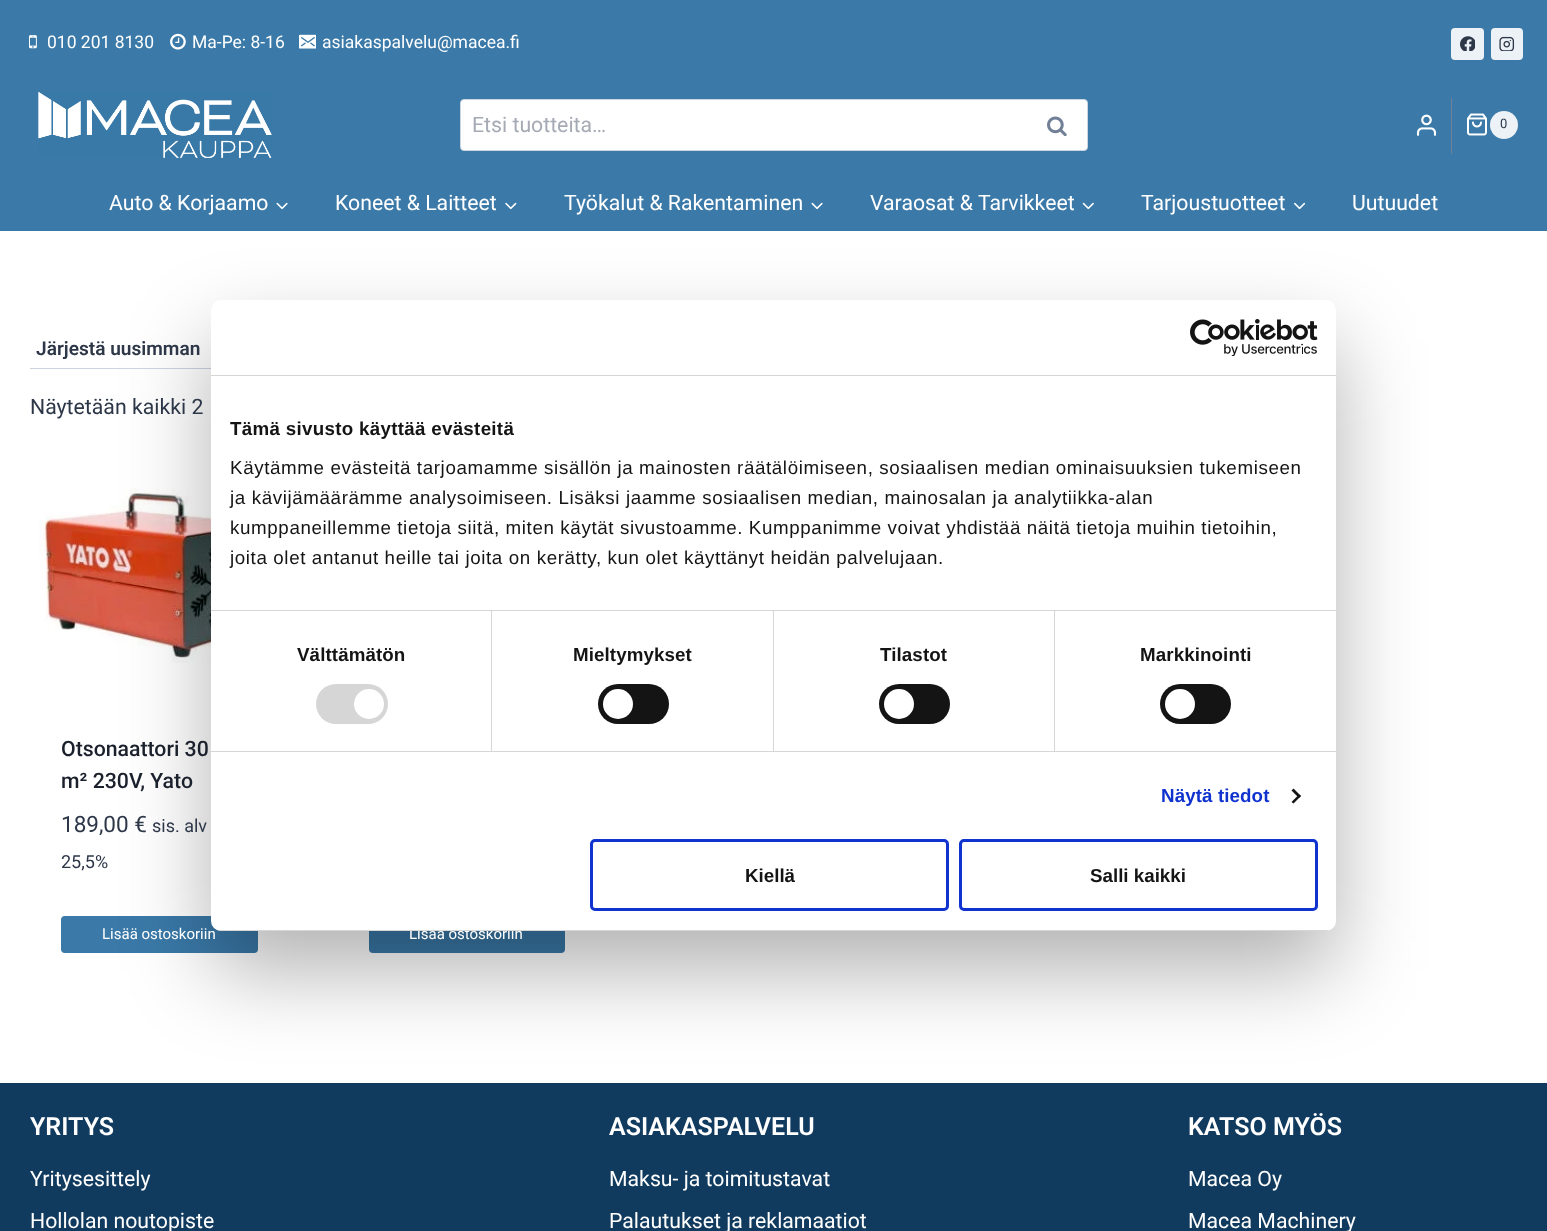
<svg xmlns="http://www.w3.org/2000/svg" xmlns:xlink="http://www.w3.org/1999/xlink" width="1547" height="1231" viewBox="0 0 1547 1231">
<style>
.cls-1{font:17.5px Roboto;fill:#ffffff}
.cls-2{font:21.25px Roboto;fill:#a5aab4}
.cls-3{font:13px Roboto;fill:#2d3748}
.cls-4{font:21.25px Roboto;fill:#ffffff}
.cls-5{font:600 19.1px Roboto;fill:#2d3748}
.cls-6{font:21.25px Roboto;fill:#2d3748}
.cls-7{font:500 21.25px Roboto;fill:#1a202c}
.cls-8{font:22.5px Roboto;fill:#2d3748}
.cls-9{font:18px Roboto;fill:#2d3748}
.cls-10{font:15px Roboto;fill:#ffffff}
.cls-11{font:600 25px Roboto;fill:#ffffff}
.cls-12{font:bold 18.75px Liberation Sans;letter-spacing:0.3px;fill:#141414}
.cls-13{font:18.75px Liberation Sans;letter-spacing:0.62px;fill:#141414}
.cls-14{font:bold 18.75px Liberation Sans;letter-spacing:0.1px;fill:#141414}
.cls-15{font:bold 18.75px Liberation Sans;letter-spacing:0.1px;fill:#1032cf}
.cls-16{font:bold 18.75px Liberation Sans;fill:#141414}
</style>
<defs>
<clipPath id="clip1"><rect x="211" y="300" width="1125" height="631" rx="10"/></clipPath>
</defs>
<rect width="100%" height="100%" fill="#ffffff"/>
<rect fill="#3a79a8" x="0" y="0" width="1547" height="231"/>
<image xlink:href="image0.png" x="29" y="35" width="8" height="14"/>
<image xlink:href="image1.png" x="170" y="33" width="16" height="17"/>
<image xlink:href="image2.png" x="299" y="34" width="17" height="15"/>
<rect fill="#edf2f7" x="1451" y="28" width="33" height="32" rx="4"/>
<image xlink:href="image3.png" x="1460" y="36" width="15" height="15"/>
<rect fill="#edf2f7" x="1491" y="28" width="32" height="32" rx="4"/>
<image xlink:href="image4.png" x="1499" y="36" width="16" height="15"/>
<image xlink:href="image5.png" x="38" y="91" width="234" height="67"/>
<rect fill="#ffffff" stroke="#cbd5e0" x="460.5" y="99.5" width="627" height="51" rx="3.5"/>
<image xlink:href="image6.png" x="1047" y="116" width="20" height="20"/>
<image xlink:href="image7.png" x="1416" y="114" width="21" height="22"/>
<rect fill="#718096" x="1451" y="98" width="1" height="56"/>
<image xlink:href="image8.png" x="1467" y="113" width="20" height="23"/>
<circle fill="#edf2f7" cx="1504" cy="125" r="14"/>
<image xlink:href="image9.png" x="276" y="202" width="12" height="8"/>
<image xlink:href="image10.png" x="505" y="202" width="12" height="8"/>
<image xlink:href="image9.png" x="811" y="202" width="12" height="8"/>
<image xlink:href="image11.png" x="1082" y="202" width="12" height="8"/>
<image xlink:href="image12.png" x="1294" y="202" width="12" height="8"/>
<rect fill="#cbd5e0" x="30" y="368" width="181" height="1"/>
<image xlink:href="image13.png" x="39" y="488" width="172" height="175"/>
<rect fill="#3a79a8" x="61" y="916" width="197" height="37" rx="4"/>
<rect fill="#3a79a8" x="369" y="916" width="196" height="37" rx="4"/>
<rect fill="#103a5e" x="0" y="1083" width="1547" height="148"/>
<rect fill="#000000" fill-opacity="0.3" filter="blur(42.5px)" x="211" y="340" width="1125" height="631" rx="10"/>
<rect fill="#ffffff" x="211" y="300" width="1125" height="631" rx="10"/>
<rect fill="#d6d6d6" x="211" y="375" width="1125" height="1"/>
<image xlink:href="image14.png" x="1190" y="319" width="128" height="37"/>
<rect fill="#d6d6d6" x="211" y="610" width="1125" height="1"/>
<rect fill="#d6d6d6" x="211" y="751" width="1125" height="1"/>
<rect fill="#d6d6d6" x="491" y="611" width="1" height="140"/>
<rect fill="#d6d6d6" x="316" y="684" width="72" height="40" rx="20"/>
<circle fill="#ffffff" cx="369" cy="704" r="15"/>
<rect fill="#d6d6d6" x="773" y="611" width="1" height="140"/>
<rect fill="#141414" x="598" y="684" width="71" height="40" rx="20"/>
<circle fill="#ffffff" cx="618" cy="704" r="15"/>
<rect fill="#d6d6d6" x="1054" y="611" width="1" height="140"/>
<rect fill="#141414" x="879" y="684" width="71" height="40" rx="20"/>
<circle fill="#ffffff" cx="899" cy="704" r="15"/>
<rect fill="#141414" x="1160" y="684" width="71" height="40" rx="20"/>
<circle fill="#ffffff" cx="1180" cy="704" r="15"/>
<path fill="#141414" d="M1293.5 788.5L1301 796L1299 798L1291.5 790.5Z"/>
<path fill="#141414" d="M1299 794.5L1301 796L1293.5 803.5L1291.5 802Z"/>
<rect fill="none" stroke="#1032cf" stroke-width="3" x="591.5" y="840.5" width="356" height="69" rx="3.5"/>
<rect fill="none" stroke="#1032cf" stroke-width="3" x="960.5" y="840.5" width="356" height="69" rx="3.5"/>
<text class="cls-1" x="47" y="48">010 201 8130</text>
<text class="cls-1" x="192" y="48">Ma-Pe: 8-16</text>
<text class="cls-1" x="322" y="48">asiakaspalvelu@macea.fi</text>
<text class="cls-2" x="472" y="132">Etsi tuotteita…</text>
<text class="cls-3" x="1500" y="128">0</text>
<text class="cls-4" x="109" y="210">Auto &amp; Korjaamo</text>
<text class="cls-4" x="335" y="210">Koneet &amp; Laitteet</text>
<text class="cls-4" x="564" y="210">Työkalut &amp; Rakentaminen</text>
<text class="cls-4" x="870" y="210">Varaosat &amp; Tarvikkeet</text>
<text class="cls-4" x="1141" y="210">Tarjoustuotteet</text>
<text class="cls-4" x="1352" y="210">Uutuudet</text>
<text class="cls-5" x="36" y="355">Järjestä uusimman</text>
<text class="cls-6" x="30" y="414">Näytetään kaikki 2</text>
<text class="cls-7"><tspan x="61" y="756">Otsonaattori 30</tspan><tspan x="61" y="788">m² 230V, Yato</tspan></text>
<text class="cls-8" x="61" y="832">189,00 €</text>
<text class="cls-9" x="152" y="832">sis. alv</text>
<text class="cls-9" x="61" y="868">25,5%</text>
<text class="cls-10" x="102" y="939">Lisää ostoskoriin</text>
<text class="cls-10" x="409" y="939">Lisää ostoskoriin</text>
<text class="cls-11" x="30" y="1135">YRITYS</text>
<text class="cls-4"><tspan x="30" y="1186">Yritysesittely</tspan><tspan x="30" y="1228">Hollolan noutopiste</tspan></text>
<text class="cls-11" x="609" y="1135">ASIAKASPALVELU</text>
<text class="cls-4"><tspan x="609" y="1186">Maksu- ja toimitustavat</tspan><tspan x="609" y="1228">Palautukset ja reklamaatiot</tspan></text>
<text class="cls-11" x="1188" y="1135">KATSO MYÖS</text>
<text class="cls-4"><tspan x="1188" y="1186">Macea Oy</tspan><tspan x="1188" y="1228">Macea Machinery</tspan></text>
<text class="cls-12" x="230" y="435">Tämä sivusto käyttää evästeitä</text>
<text class="cls-13"><tspan x="230" y="474">Käytämme evästeitä tarjoamamme sisällön ja mainosten räätälöimiseen, sosiaalisen median ominaisuuksien tukemiseen</tspan><tspan x="230" y="504">ja kävijämäärämme analysoimiseen. Lisäksi jaamme sosiaalisen median, mainosalan ja analytiikka-alan</tspan><tspan x="230" y="534">kumppaneillemme tietoja siitä, miten käytät sivustoamme. Kumppanimme voivat yhdistää näitä tietoja muihin tietoihin,</tspan><tspan x="230" y="564">joita olet antanut heille tai joita on kerätty, kun olet käyttänyt heidän palvelujaan.</tspan></text>
<text class="cls-14" x="297" y="661">Välttämätön</text>
<text class="cls-14" x="573" y="661">Mieltymykset</text>
<text class="cls-14" x="880" y="661">Tilastot</text>
<text class="cls-14" x="1140" y="661">Markkinointi</text>
<text class="cls-15" x="1161" y="802">Näytä tiedot</text>
<g clip-path="url(#clip1)">
<rect fill="#d6d6d6" x="211" y="930" width="1125" height="1"/>
</g>
<text class="cls-16" x="745" y="882">Kiellä</text>
<text class="cls-16" x="1090" y="882">Salli kaikki</text>
</svg>
